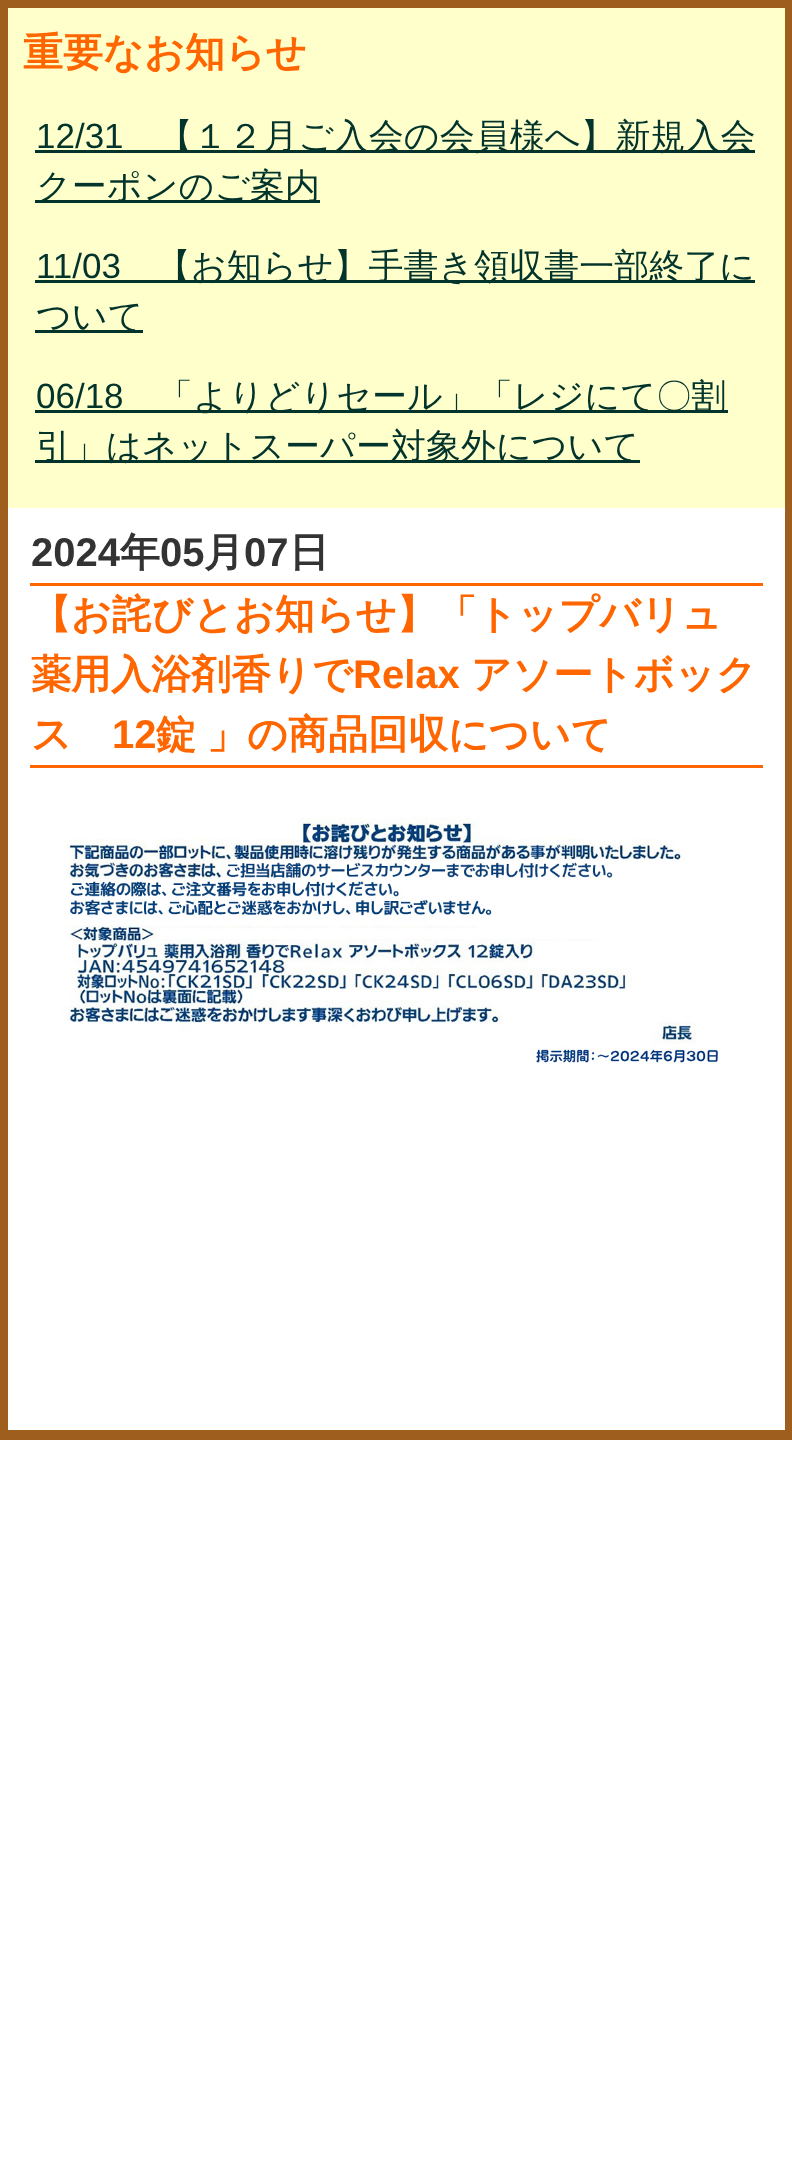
<svg xmlns="http://www.w3.org/2000/svg" xmlns:xlink="http://www.w3.org/1999/xlink" width="792" height="2165" viewBox="0 0 792 2165">
<style>
.cls-1{font:bold 40px WenQuanYi Zen Hei;fill:#ff6600}
.cls-2{font:35px Liberation Sans;fill:#03342c}
.cls-3{font:500 35px WenQuanYi Zen Hei;fill:#03342c}
.cls-4{font:bold 40px Liberation Sans;fill:#333333}
.cls-5{font:bold 40px WenQuanYi Zen Hei;fill:#333333}
.cls-6{font:bold 40px Liberation Sans;fill:#ff6600}
</style>
<rect width="100%" height="100%" fill="#ffffff"/>
<rect fill="#9e5e1e" x="0" y="0" width="792" height="1440"/>
<rect fill="#ffffcc" x="8" y="8" width="777" height="500"/>
<rect fill="#03342c" x="35" y="150" width="720" height="3"/>
<rect fill="#03342c" x="35" y="200" width="285" height="3"/>
<rect fill="#03342c" x="35" y="280" width="720" height="3"/>
<rect fill="#03342c" x="35" y="330" width="108" height="3"/>
<rect fill="#03342c" x="35" y="410" width="693" height="3"/>
<rect fill="#03342c" x="35" y="460" width="605" height="3"/>
<rect fill="#ffffff" x="8" y="508" width="777" height="922"/>
<rect fill="#ff6600" x="30" y="583" width="733" height="3"/>
<rect fill="#ff6600" x="30" y="765" width="733" height="3"/>
<image xlink:href="image0.png" x="60" y="817" width="659" height="249"/>
<text class="cls-1" x="23" y="66">重要なお知らせ</text>
<text class="cls-2" x="36" y="148">12/31</text>
<text class="cls-3" x="158" y="148">【１２月ご入会の会員様へ】新規入会</text>
<text class="cls-3" x="36" y="198">クーポンのご案内</text>
<text class="cls-2" x="36" y="278">11/03</text>
<text class="cls-3" x="156" y="278">【お知らせ】手書き領収書一部終了に</text>
<text class="cls-3" x="36" y="328">ついて</text>
<text class="cls-2" x="36" y="408">06/18</text>
<text class="cls-3" x="158" y="408">「よりどりセール」「レジにて〇割</text>
<text class="cls-3" x="36" y="458">引」はネットスーパー対象外について</text>
<text class="cls-4" x="31" y="566">2024</text>
<text class="cls-5" x="120" y="566">年</text>
<text class="cls-4" x="160" y="566">05</text>
<text class="cls-5" x="204" y="566">月</text>
<text class="cls-4" x="244" y="566">07</text>
<text class="cls-5" x="289" y="566">日</text>
<text class="cls-1"><tspan x="31" y="628">【お詫びとお知らせ】「トップバリュ</tspan><tspan x="31" y="688">薬用入浴剤香りで</tspan></text>
<text class="cls-6" x="353" y="688">Relax</text>
<text class="cls-1" x="471" y="688">アソートボック</text>
<text class="cls-1" x="31" y="748">ス</text>
<text class="cls-6" x="112" y="748">12</text>
<text class="cls-1" x="156" y="748" word-spacing="-1">錠 」の商品回収について</text>
</svg>
